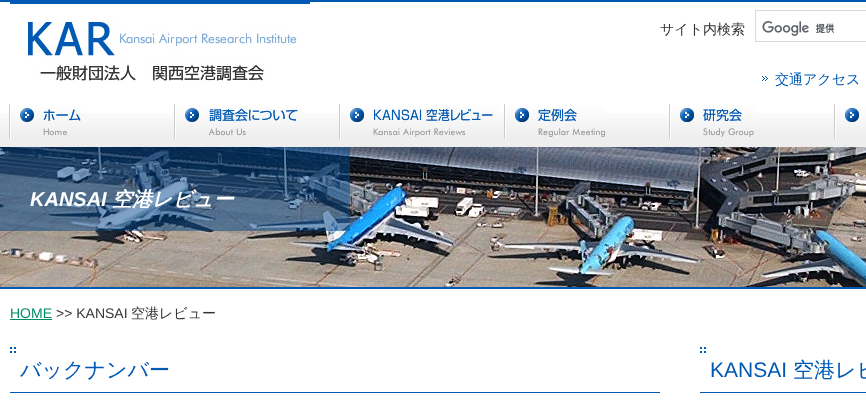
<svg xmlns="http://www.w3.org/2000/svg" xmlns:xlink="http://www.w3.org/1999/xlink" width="866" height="412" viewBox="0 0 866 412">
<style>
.cls-1{font:500 14px WenQuanYi Zen Hei;fill:#333333}
.cls-2{font:500 14px WenQuanYi Zen Hei;fill:#0059b2}
.cls-3{font:italic bold 20px Liberation Sans;fill:#ffffff}
.cls-4{font:italic bold 20px WenQuanYi Zen Hei;fill:#ffffff}
.cls-5{font:14px Liberation Sans;fill:#008c67}
.cls-6{font:14px Liberation Sans;fill:#333333}
.cls-7{font:500 21px WenQuanYi Zen Hei;fill:#0059b2}
.cls-8{font:21px Liberation Sans;fill:#0059b2}
</style>
<rect width="100%" height="100%" fill="#ffffff"/>
<image xlink:href="image0.png" x="0" y="113" width="866" height="34"/>
<rect fill="#0059b2" x="0" y="0" width="866" height="2"/>
<rect fill="#0059b2" x="10" y="2" width="300" height="2"/>
<image xlink:href="image1.png" x="26" y="20" width="272" height="62"/>
<rect fill="none" stroke="#d9d9d9" x="755.5" y="10.5" width="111" height="31"/>
<image xlink:href="image2.png" x="762" y="21" width="73" height="15"/>
<image xlink:href="image3.png" x="761" y="72" width="8" height="14"/>
<image xlink:href="image4.png" x="9" y="104" width="72" height="35"/>
<image xlink:href="image5.png" x="174" y="104" width="128" height="35"/>
<image xlink:href="image6.png" x="339" y="104" width="160" height="35"/>
<image xlink:href="image7.png" x="504" y="104" width="102" height="35"/>
<image xlink:href="image8.png" x="669" y="104" width="86" height="35"/>
<image xlink:href="image9.png" x="834" y="104" width="32" height="35"/>
<image xlink:href="image10.png" x="0" y="147" width="866" height="140"/>
<rect fill="#0059b2" x="0" y="287" width="866" height="2"/>
<rect fill="#00468b" fill-opacity="0.5" x="0" y="147" width="350" height="84"/>
<rect fill="#008c67" x="10" y="319" width="42" height="1"/>
<image xlink:href="image11.png" x="10" y="347" width="6" height="6"/>
<rect fill="#0059b2" x="10" y="392" width="650" height="1"/>
<image xlink:href="image11.png" x="700" y="347" width="6" height="6"/>
<rect fill="#0059b2" x="700" y="392" width="166" height="1"/>
<text class="cls-1" x="660" y="34">サイト内検索</text>
<text class="cls-2" x="775" y="84">交通アクセス</text>
<text class="cls-3" x="30" y="206">KANSAI</text>
<text class="cls-4" x="112" y="206">空港レビュー</text>
<text class="cls-5" x="10" y="318">HOME</text>
<text class="cls-6" x="56" y="318">&gt;&gt; KANSAI</text>
<text class="cls-1" x="131" y="318">空港レビュー</text>
<text class="cls-7" x="20" y="377">バックナンバー</text>
<text class="cls-8" x="710" y="377">KANSAI</text>
<text class="cls-7" x="793" y="377">空港レビ</text>
</svg>
